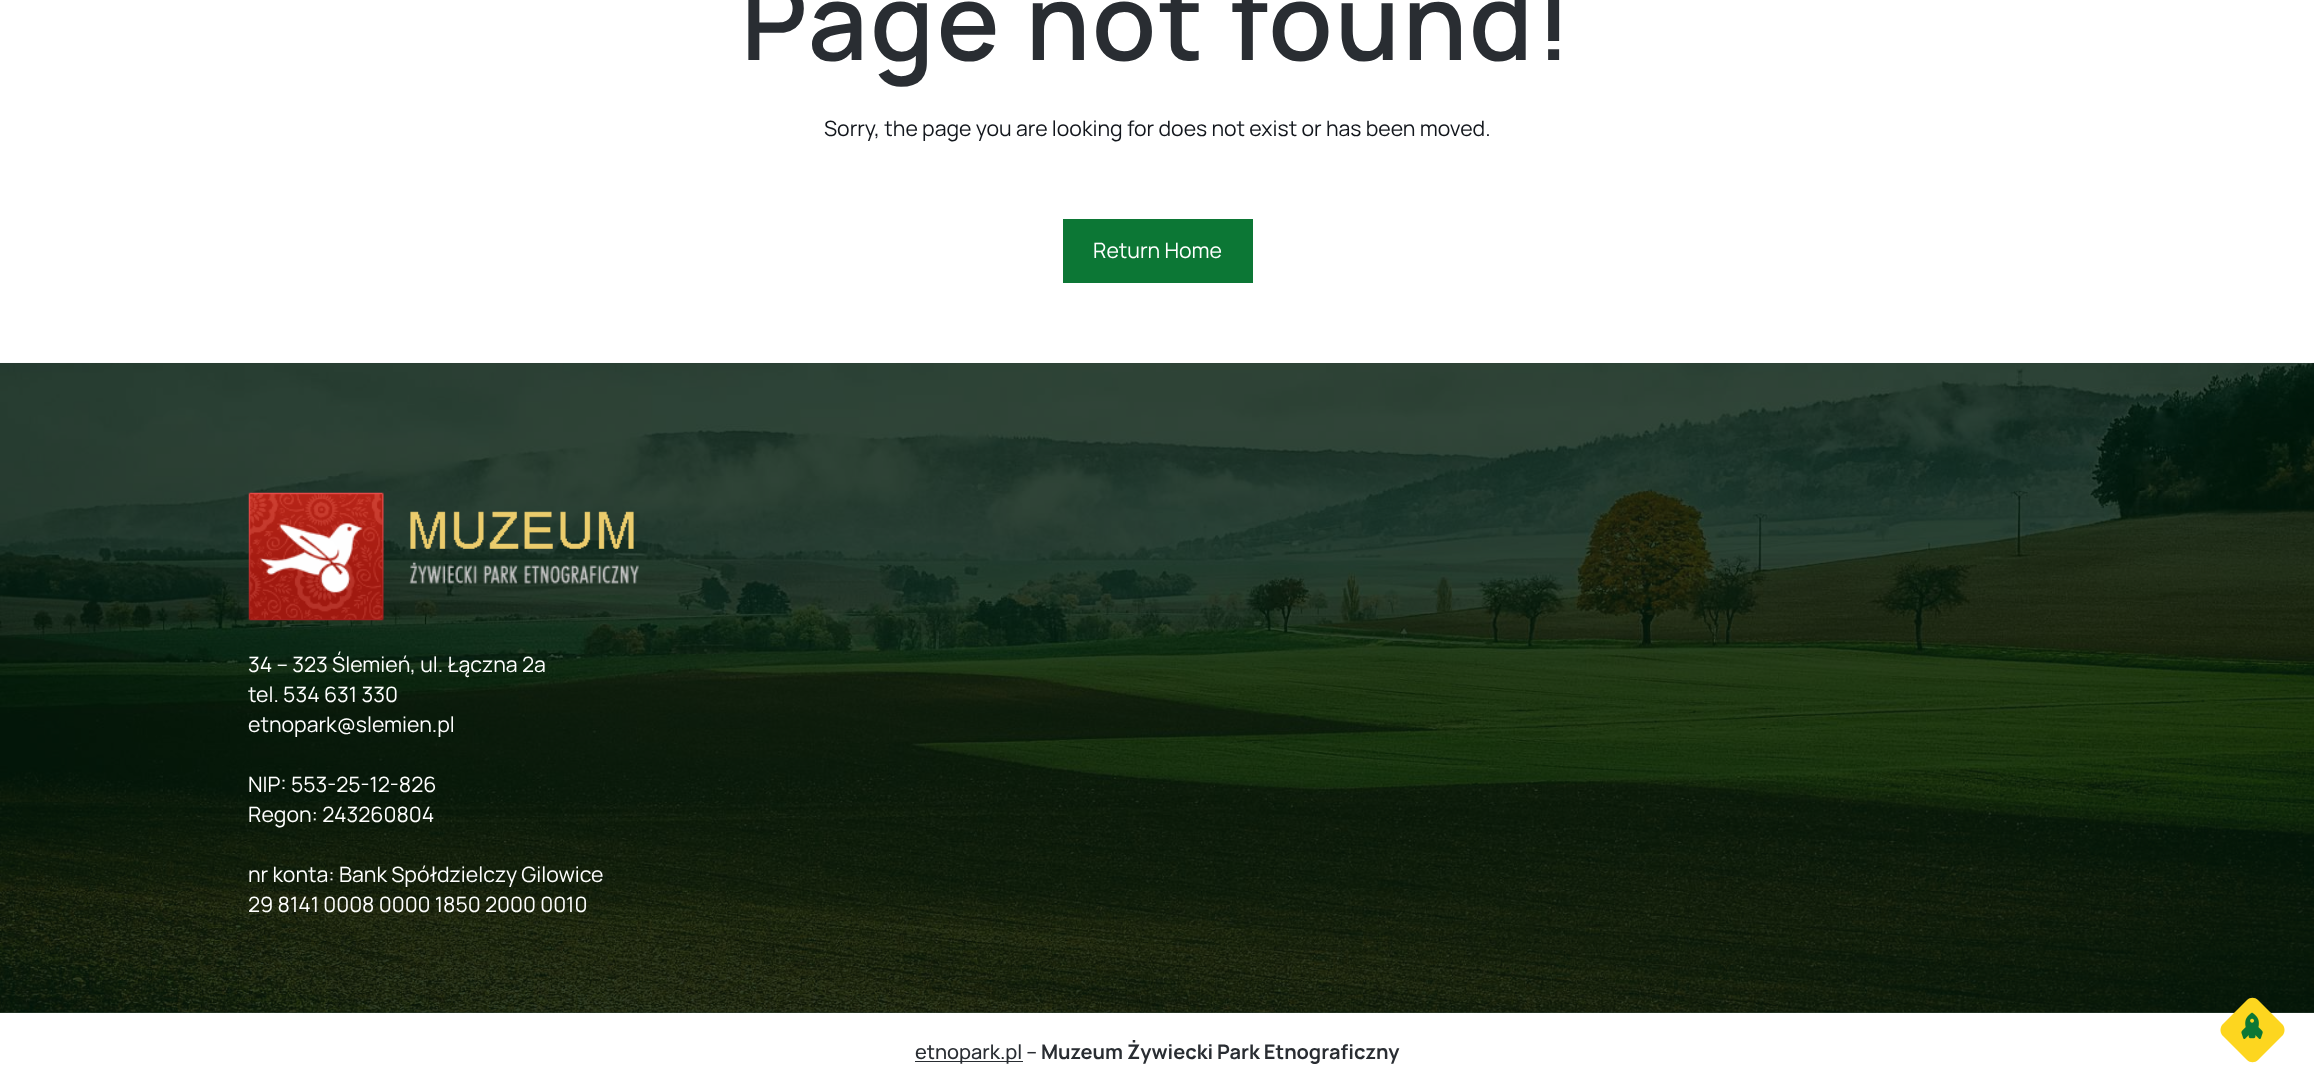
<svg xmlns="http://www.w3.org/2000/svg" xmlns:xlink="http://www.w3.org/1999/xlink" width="2314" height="1092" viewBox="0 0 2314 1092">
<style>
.cls-1{font:600 105.25px Manrope;letter-spacing:2.5px;fill:#292d32}
.cls-2{font:21.25px Manrope;fill:#12161c}
.cls-3{font:21.25px Manrope;fill:#ffffff}
.cls-4{font:500 20px Manrope;fill:#292d32}
.cls-5{font:bold 20px Manrope;fill:#292d32}
</style>
<rect width="100%" height="100%" fill="#ffffff"/>
<rect fill="#33483b" x="0" y="1012" width="2314" height="1"/>
<rect fill="#0c7735" x="1063" y="219" width="190" height="64"/>
<image xlink:href="image0.png" x="0" y="362" width="2314" height="651"/>
<image xlink:href="image1.png" x="248" y="492" width="391" height="129"/>
<rect fill="#292d32" x="915" y="1061" width="108" height="1"/>
<path fill="#fdd61f" d="M2222 1025L2247 1000C2250 997 2255 997 2258 1000L2283 1025C2285 1028 2285 1032 2283 1035L2258 1060C2255 1063 2250 1063 2247 1060L2222 1035C2220 1032 2220 1028 2222 1025Z"/>
<image xlink:href="image2.png" x="2241" y="1012" width="22" height="27"/>
<text class="cls-1" x="741" y="60">Page not found!</text>
<text class="cls-2" x="824" y="136">Sorry, the page you are looking for does not exist or has been moved.</text>
<text class="cls-3" x="1093" y="258">Return Home</text>
<text class="cls-3"><tspan x="248" y="672">34 – 323 Ślemień, ul. Łączna 2a</tspan><tspan x="248" y="702">tel. 534 631 330</tspan><tspan x="248" y="732">etnopark@slemien.pl</tspan></text>
<text class="cls-3"><tspan x="248" y="792">NIP: 553-25-12-826</tspan><tspan x="248" y="822">Regon: 243260804</tspan></text>
<text class="cls-3"><tspan x="248" y="882">nr konta: Bank Spółdzielczy Gilowice</tspan><tspan x="248" y="912">29 8141 0008 0000 1850 2000 0010</tspan></text>
<text class="cls-4" x="915" y="1059">etnopark.pl –</text>
<text class="cls-5" x="1041" y="1059">Muzeum Żywiecki Park Etnograficzny</text>
</svg>
